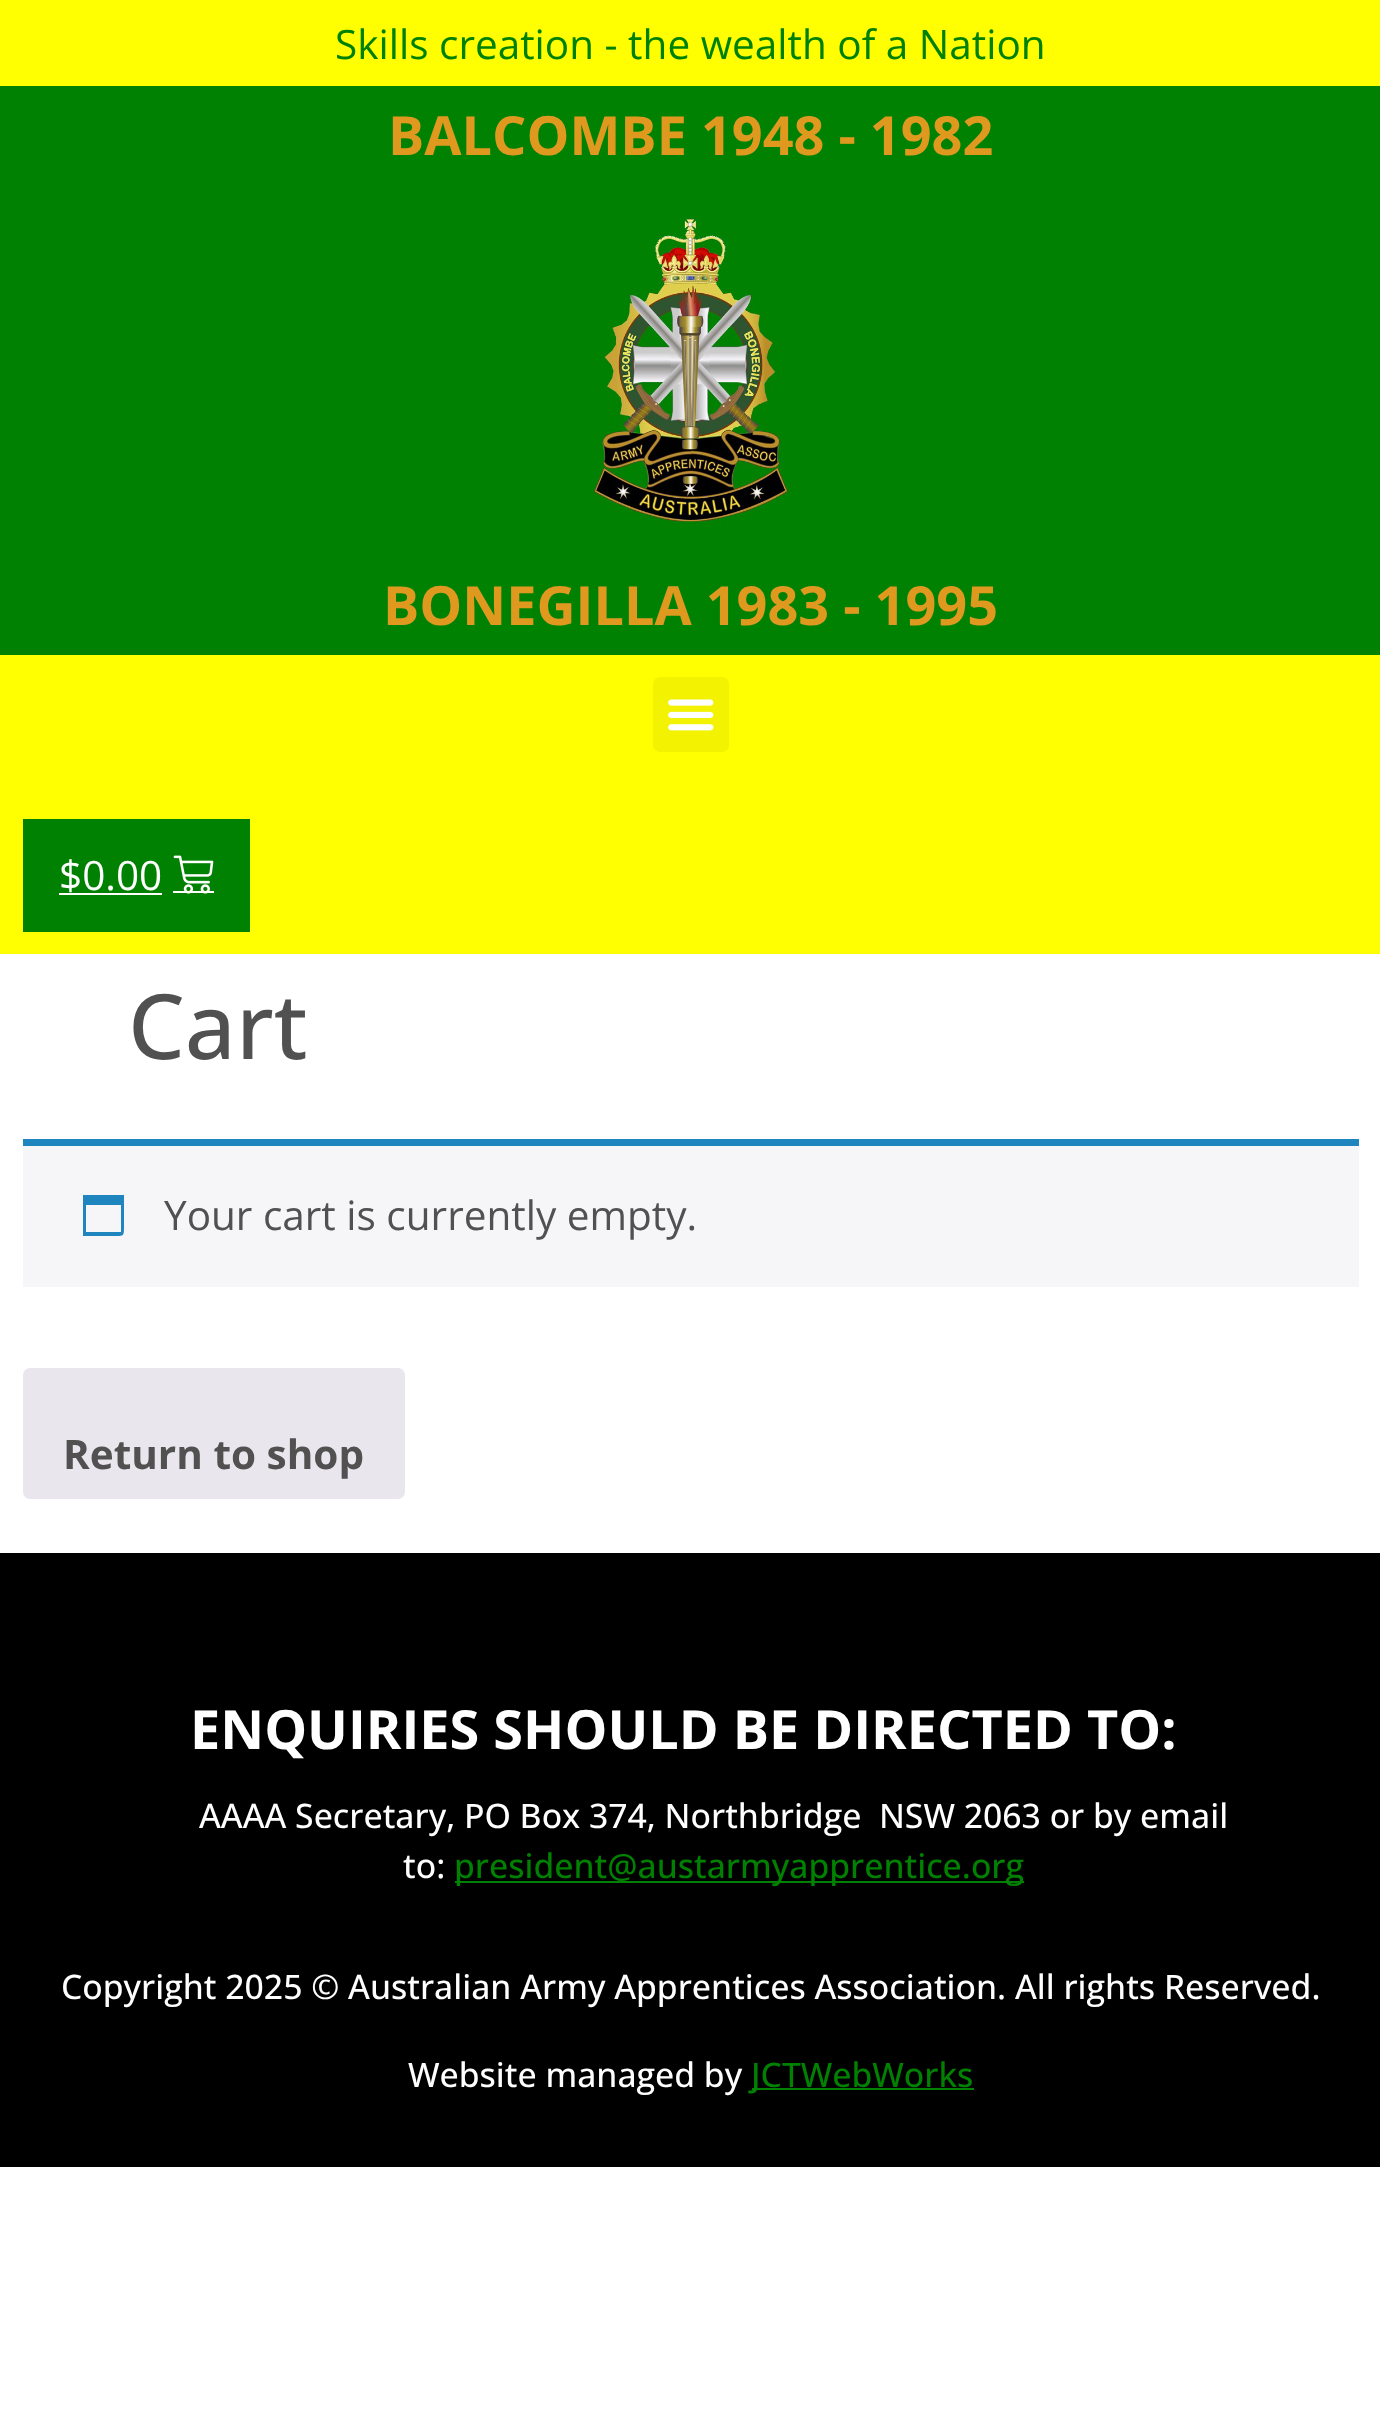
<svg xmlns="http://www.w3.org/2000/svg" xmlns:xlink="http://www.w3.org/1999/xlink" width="1380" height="2409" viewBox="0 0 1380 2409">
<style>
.cls-1{font:40.5px Open Sans;fill:#008102}
.cls-2{font:bold 54px Open Sans;fill:#e0991f}
.cls-3{font:40.5px Open Sans;fill:#ffffff}
.cls-4{font:500 90px Open Sans;fill:#515151}
.cls-5{font:40.5px Open Sans;fill:#515151}
.cls-6{font:bold 40.5px Open Sans;fill:#515151}
.cls-7{font:bold 54px Open Sans;fill:#ffffff}
.cls-8{font:500 33.75px Open Sans;fill:#ffffff}
.cls-9{font:500 33.75px Open Sans;fill:#008102}
</style>
<rect width="100%" height="100%" fill="#ffffff"/>
<rect fill="#ffff01" x="0" y="0" width="1380" height="86"/>
<rect fill="#008102" x="0" y="86" width="1380" height="569"/>
<image xlink:href="image0.png" x="594" y="215" width="197" height="307"/>
<rect fill="#ffff01" x="0" y="655" width="1380" height="299"/>
<rect fill="#f2f201" x="653" y="677" width="76" height="75" rx="7"/>
<image xlink:href="image1.png" x="668" y="699" width="46" height="32"/>
<rect fill="#008102" x="23" y="819" width="227" height="113"/>
<rect fill="#ffffff" x="59" y="893" width="103" height="2"/>
<rect fill="#ffffff" x="173" y="891" width="41" height="2"/>
<image xlink:href="image2.png" x="173" y="855" width="41" height="39"/>
<rect fill="#f6f5f8" x="23" y="1146" width="1336" height="141"/>
<rect fill="#1e85be" x="23" y="1139" width="1336" height="7"/>
<path fill="#1e85be" d="M121 1205H86V1232H121ZM124 1195V1226C124 1236 124 1236 115 1236H83V1195Z"/>
<rect fill="#e9e6ed" x="23" y="1368" width="382" height="131" rx="7"/>
<rect fill="#000000" x="0" y="1553" width="1380" height="614"/>
<rect fill="#008102" x="455" y="1881" width="569" height="2"/>
<rect fill="#008102" x="752" y="2088" width="222" height="2"/>
<text class="cls-1" x="335" y="59">Skills creation - the wealth of a Nation</text>
<text class="cls-2" x="388" y="155">BALCOMBE 1948 - 1982</text>
<text class="cls-2" x="383" y="625">BONEGILLA 1983 - 1995</text>
<text class="cls-3" x="59" y="890">$0.00</text>
<text class="cls-4" x="128" y="1059">Cart</text>
<text class="cls-5" x="164" y="1230">Your cart is currently empty.</text>
<text class="cls-6" x="63" y="1469">Return to shop</text>
<text class="cls-7" x="190" y="1749">ENQUIRIES SHOULD BE DIRECTED TO:</text>
<text class="cls-8" xml:space="preserve" x="199" y="1828">AAAA Secretary, PO Box 374, Northbridge  NSW 2063 or by email</text>
<text class="cls-8" x="403" y="1878">to:</text>
<text class="cls-9" x="454" y="1878">president@austarmyapprentice.org</text>
<text class="cls-8" x="61" y="1999">Copyright 2025 © Australian Army Apprentices Association. All rights Reserved.</text>
<text class="cls-8" x="408" y="2087">Website managed by</text>
<text class="cls-9" x="751" y="2087">JCTWebWorks</text>
</svg>
